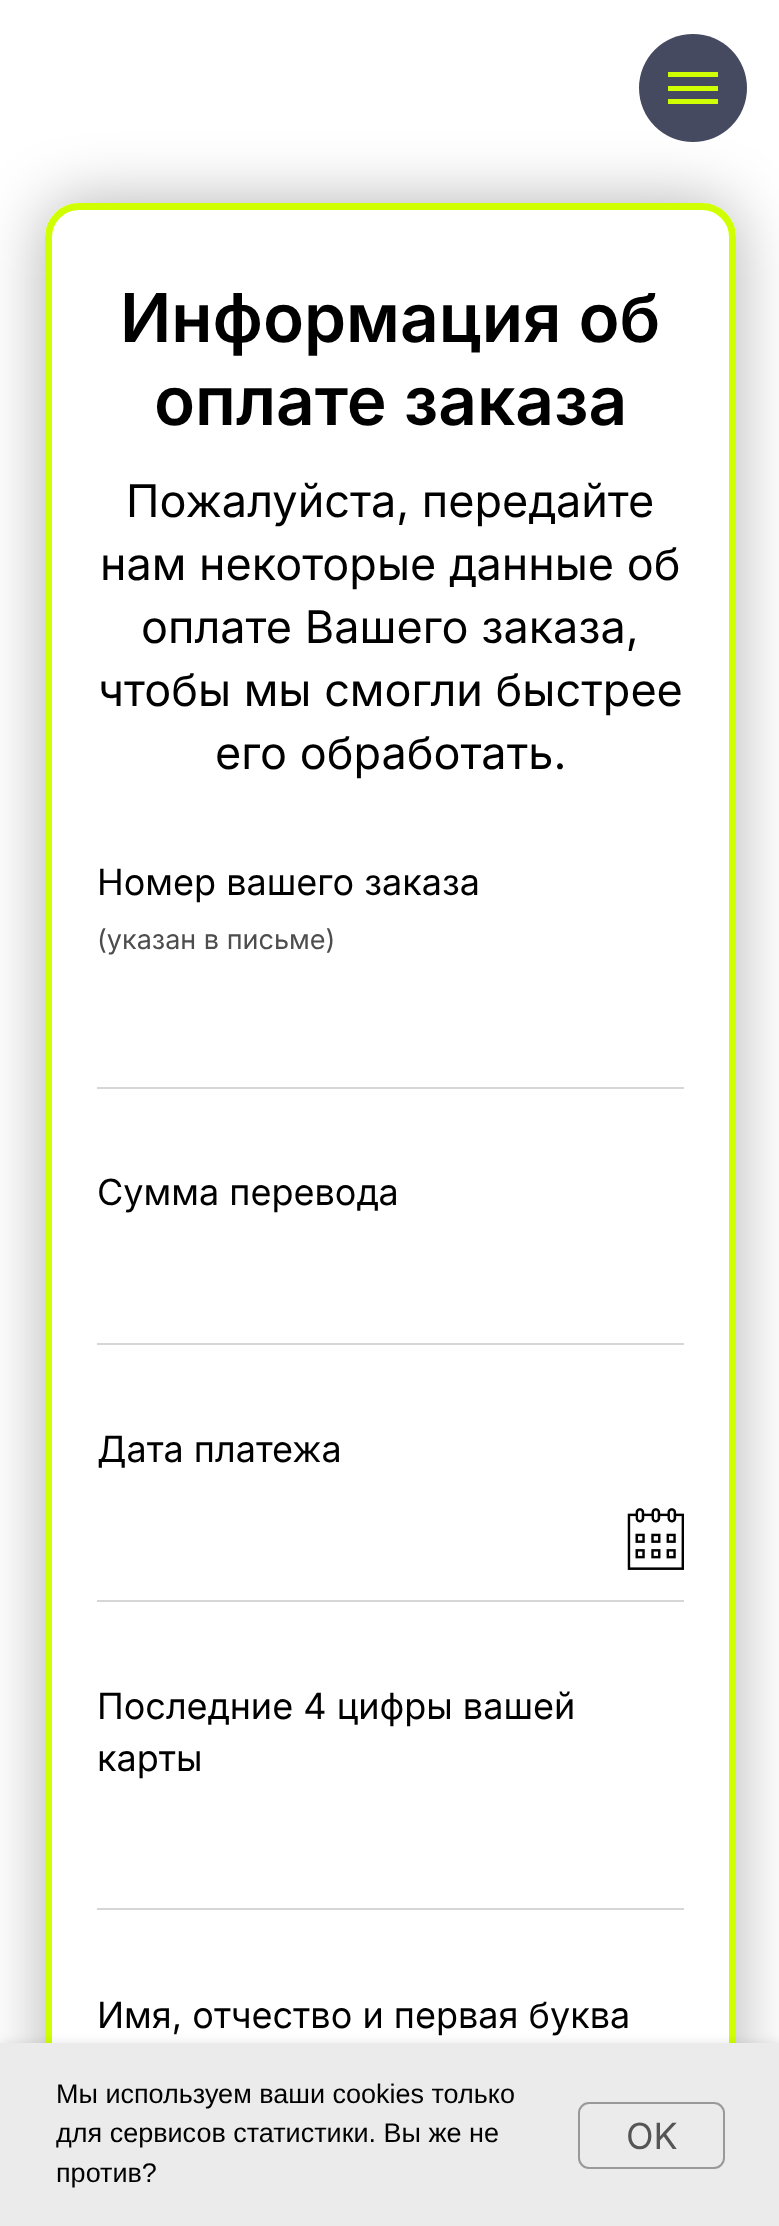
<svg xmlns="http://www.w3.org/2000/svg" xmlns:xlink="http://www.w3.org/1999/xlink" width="779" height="2226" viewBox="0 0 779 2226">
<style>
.cls-1{font:600 67.5px Inter;fill:#000000}
.cls-2{font:45px Inter;fill:#000000}
.cls-3{font:36px Inter;fill:#000000}
.cls-4{font:27px Inter;fill:#4d4d4d}
.cls-5{font:27px Liberation Sans;fill:#000000}
.cls-6{font:36px Inter;fill:#555555}
</style>
<defs>
<clipPath id="clip1"><path d="M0 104H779V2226H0ZM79 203H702C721 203 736 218 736 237V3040C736 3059 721 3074 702 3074H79C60 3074 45 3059 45 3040V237C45 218 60 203 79 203Z" clip-rule="evenodd"/></clipPath>
</defs>
<rect width="100%" height="100%" fill="#ffffff"/>
<g clip-path="url(#clip1)">
<rect fill="#000000" fill-opacity="0.3" filter="blur(32.5px)" x="45" y="203" width="691" height="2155" rx="34"/>
</g>
<circle fill="#454a60" cx="693" cy="88" r="54"/>
<rect fill="#d0ff01" x="668" y="72" width="50" height="5"/>
<rect fill="#d0ff01" x="668" y="86" width="50" height="5"/>
<rect fill="#d0ff01" x="668" y="99" width="50" height="5"/>
<rect fill="none" stroke="#d0ff01" stroke-width="7" x="48.5" y="206.5" width="684" height="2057" rx="30.5"/>
<rect fill="#d6d6d6" x="97" y="1087" width="587" height="2"/>
<rect fill="#d6d6d6" x="97" y="1343" width="587" height="2"/>
<image xlink:href="image0.png" x="627" y="1508" width="57" height="62"/>
<rect fill="#d6d6d6" x="97" y="1600" width="587" height="2"/>
<rect fill="#d6d6d6" x="97" y="1908" width="587" height="2"/>
<rect fill="#000000" fill-opacity="0.1" filter="blur(5.5px)" x="0" y="2043" width="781" height="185"/>
<rect fill="#ebebeb" x="0" y="2043" width="779" height="183"/>
<rect fill="none" stroke="#999999" stroke-width="2" x="579" y="2103" width="145" height="65" rx="10"/>
<text class="cls-1" x="120" y="342">Информация об</text>
<text class="cls-1" x="154" y="425">оплате заказа</text>
<text class="cls-2" x="126" y="517">Пожалуйста, передайте</text>
<text class="cls-2" x="100" y="580">нам некоторые данные об</text>
<text class="cls-2" x="141" y="643">оплате Вашего заказа,</text>
<text class="cls-2" x="98" y="706">чтобы мы смогли быстрее</text>
<text class="cls-2" x="215" y="769">его обработать.</text>
<text class="cls-3" x="97" y="895">Номер вашего заказа</text>
<text class="cls-4" x="97" y="949">(указан в письме)</text>
<text class="cls-3" x="97" y="1205">Сумма перевода</text>
<text class="cls-3" x="97" y="1462">Дата платежа</text>
<text class="cls-3"><tspan x="97" y="1719">Последние 4 цифры вашей</tspan><tspan x="97" y="1771">карты</tspan></text>
<text class="cls-3" x="97" y="2028">Имя, отчество и первая буква</text>
<text class="cls-5"><tspan x="56" y="2103">Мы используем ваши cookies только</tspan><tspan x="56" y="2142">для сервисов статистики. Вы же не</tspan><tspan x="56" y="2182">против?</tspan></text>
<text class="cls-6" x="626" y="2149">OK</text>
</svg>
